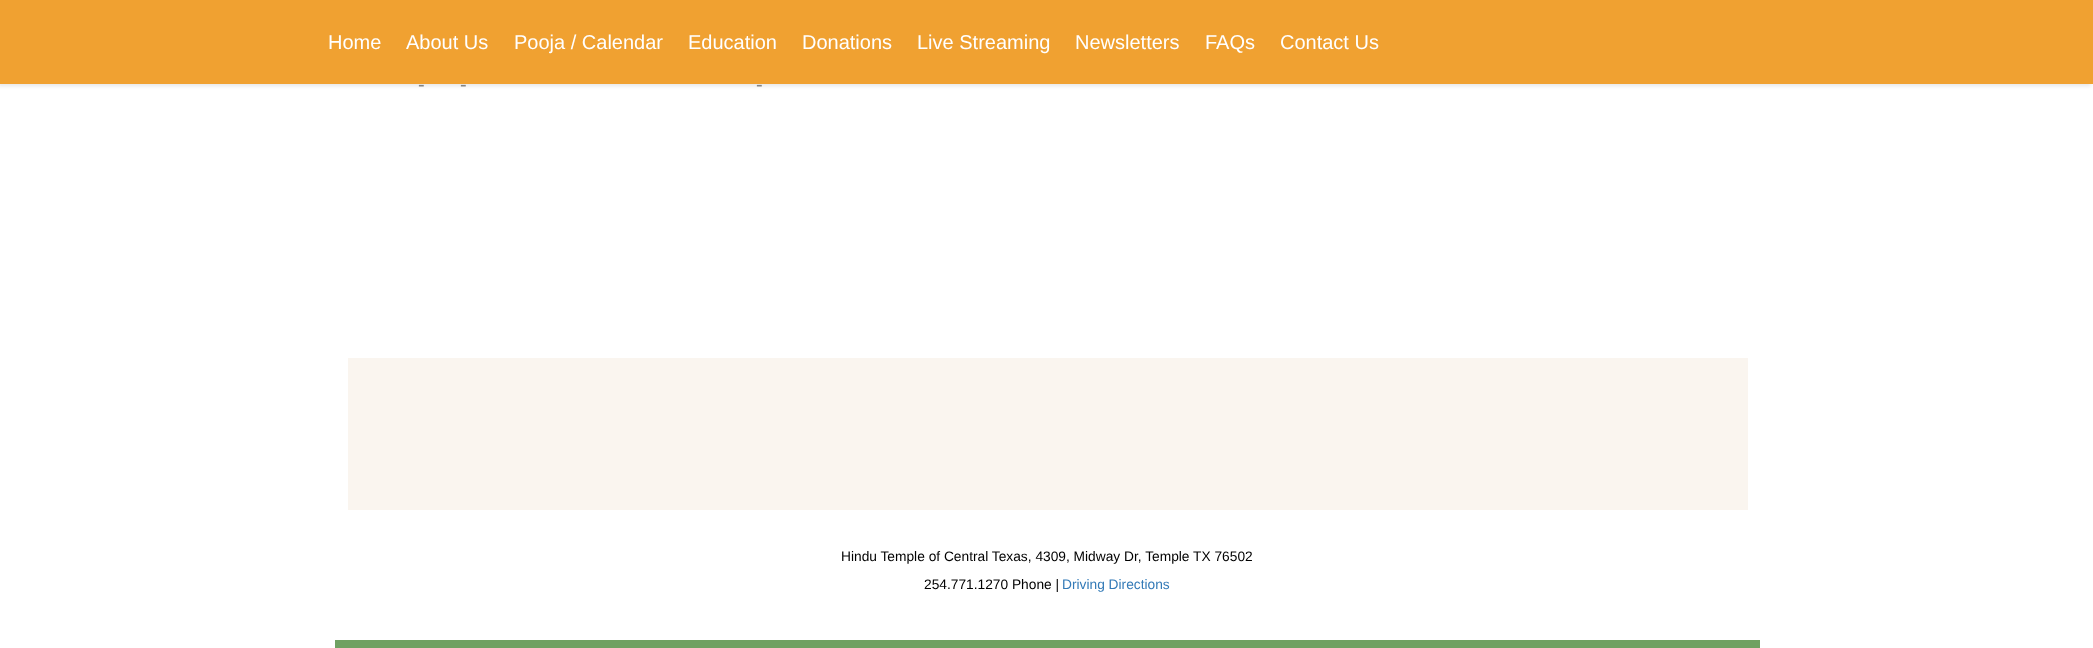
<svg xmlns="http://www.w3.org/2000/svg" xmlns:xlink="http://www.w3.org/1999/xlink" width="2093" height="648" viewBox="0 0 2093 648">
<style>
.cls-1{font:20px Liberation Sans;fill:#ffffff}
.cls-2{font:20px Liberation Sans;fill:#848483}
.cls-3{font:13.75px Liberation Sans;fill:#000000}
.cls-4{font:13.75px Liberation Sans;fill:#337ab7}
</style>
<rect width="100%" height="100%" fill="#ffffff"/>
<rect fill="#000000" fill-opacity="0.1" filter="blur(2px)" x="-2" y="3" width="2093" height="83"/>
<rect fill="#f0a131" x="0" y="0" width="2093" height="84"/>
<rect fill="#faf5ef" x="348" y="358" width="1400" height="152"/>
<rect fill="#6fa162" x="335" y="640" width="1425" height="8"/>
<text class="cls-1" x="328" y="49">Home</text>
<text class="cls-1" x="406" y="49">About Us</text>
<text class="cls-1" x="514" y="49">Pooja / Calendar</text>
<text class="cls-1" x="688" y="49">Education</text>
<text class="cls-1" x="802" y="49">Donations</text>
<text class="cls-1" x="917" y="49">Live Streaming</text>
<text class="cls-1" x="1075" y="49">Newsletters</text>
<text class="cls-1" x="1205" y="49">FAQs</text>
<text class="cls-1" x="1280" y="49">Contact Us</text>
<text class="cls-2" x="418" y="91">-</text>
<text class="cls-2" x="460" y="91">-</text>
<text class="cls-2" x="756" y="91">-</text>
<text class="cls-3" x="841" y="561">Hindu Temple of Central Texas, 4309, Midway Dr, Temple TX 76502</text>
<text class="cls-3" x="924" y="589">254.771.1270 Phone |</text>
<text class="cls-4" x="1062" y="589">Driving Directions</text>
</svg>
